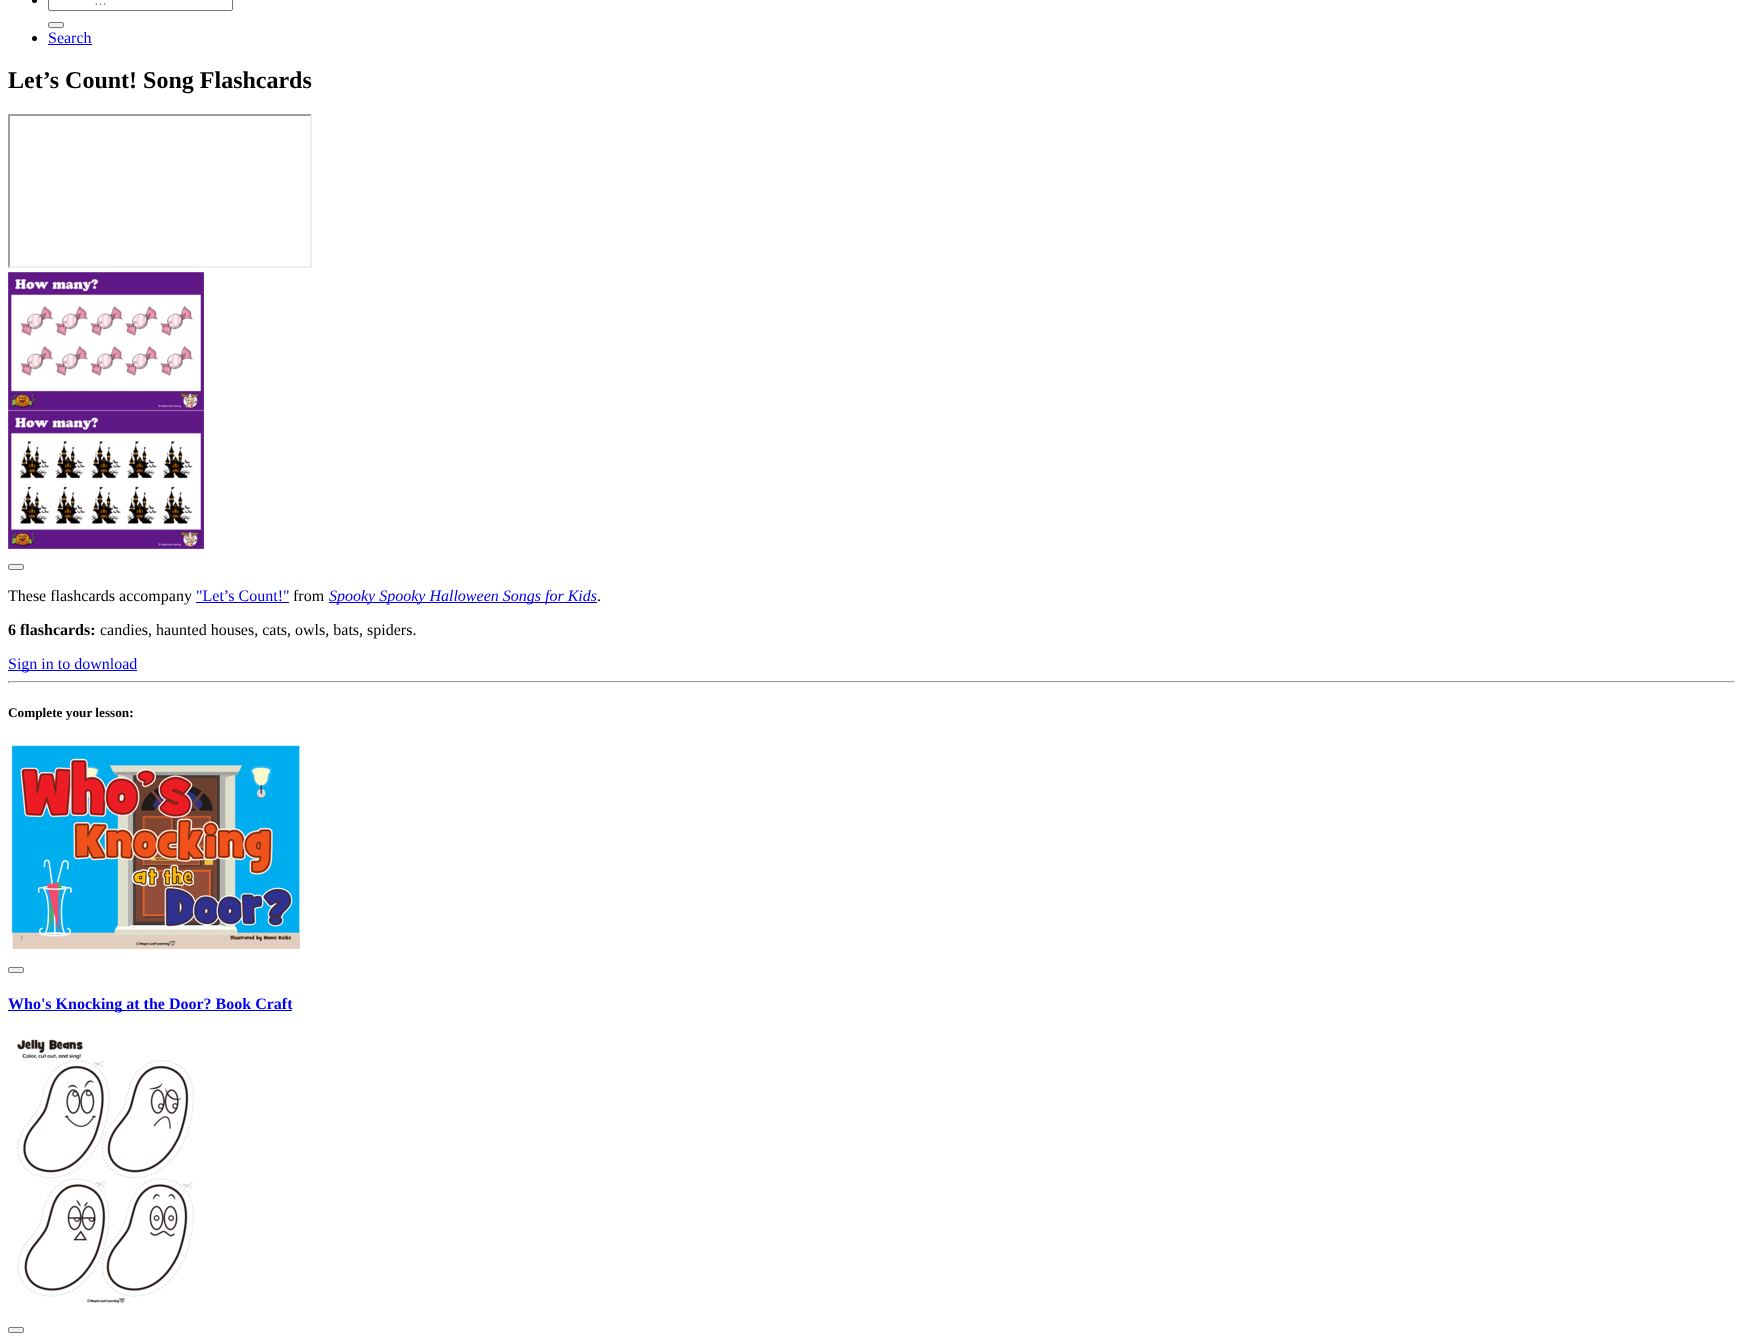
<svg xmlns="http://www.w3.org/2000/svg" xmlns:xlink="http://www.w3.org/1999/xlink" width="1743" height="1336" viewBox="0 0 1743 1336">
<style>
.cls-1{font:13px Liberation Sans;fill:#757575}
.cls-2{font:16px Liberation Serif;fill:#0000ee}
.cls-3{font:bold 24px Liberation Serif;fill:#000000}
.cls-4{font:16px Liberation Serif;fill:#000000}
.cls-5{font:italic 16px Liberation Serif;fill:#0000ee}
.cls-6{font:bold 16px Liberation Serif;fill:#000000}
.cls-7{font:bold 13.25px Liberation Serif;fill:#000000}
.cls-8{font:bold 16px Liberation Serif;fill:#0000ee}
</style>
<rect width="100%" height="100%" fill="#ffffff"/>
<circle fill="#000000" cx="34.5" cy="0.5" r="2.5"/>
<rect fill="none" stroke="#767676" x="48.5" y="-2.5" width="184" height="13" rx="1.5"/>
<rect fill="#efefef" stroke="#767676" x="48.5" y="22.5" width="15" height="5" rx="1.5"/>
<circle fill="#000000" cx="34.5" cy="38.5" r="2.5"/>
<rect fill="#0000ee" x="48" y="44" width="44" height="1"/>
<path fill="#9f9f9f" d="M8 114H312L310 116H10Z"/>
<path fill="#eeeeee" d="M312 114V268L310 266V116Z"/>
<path fill="#eeeeee" d="M312 268H8L10 266H310Z"/>
<path fill="#9f9f9f" d="M8 268V114L10 116V266Z"/>
<image xlink:href="image0.png" x="8" y="272" width="196" height="277"/>
<rect fill="#efefef" stroke="#767676" x="8.5" y="564.5" width="15" height="5" rx="1.5"/>
<rect fill="#0000ee" x="196" y="602" width="93" height="1"/>
<rect fill="#0000ee" x="329" y="602" width="268" height="1"/>
<rect fill="#0000ee" x="8" y="670" width="129" height="1"/>
<rect fill="#9f9f9f" x="8" y="681" width="1727" height="1"/>
<rect fill="#eeeeee" x="1734" y="681" width="1" height="2"/>
<rect fill="#eeeeee" x="8" y="682" width="1727" height="1"/>
<rect fill="#9f9f9f" x="8" y="681" width="1" height="2"/>
<image xlink:href="image1.png" x="11" y="745" width="289" height="205"/>
<rect fill="#efefef" stroke="#767676" x="8.5" y="967.5" width="15" height="5" rx="1.5"/>
<rect fill="#0000ee" x="8" y="1010" width="284" height="1"/>
<image xlink:href="image2.png" x="17" y="1039" width="177" height="264"/>
<rect fill="#efefef" stroke="#767676" x="8.5" y="1327.5" width="15" height="5" rx="1.5"/>
<text class="cls-1" x="94" y="5">…</text>
<text class="cls-2" x="48" y="43">Search</text>
<text class="cls-3" x="8" y="88">Let’s Count! Song Flashcards</text>
<text class="cls-4" x="8" y="601">These flashcards accompany</text>
<text class="cls-2" x="196" y="601">"Let’s Count!"</text>
<text class="cls-4" x="293" y="601">from</text>
<text class="cls-5" x="329" y="601">Spooky Spooky Halloween Songs for Kids</text>
<text class="cls-4" x="597" y="601">.</text>
<text class="cls-6" x="8" y="635">6 flashcards:</text>
<text class="cls-4" x="100" y="635">candies, haunted houses, cats, owls, bats, spiders.</text>
<text class="cls-2" x="8" y="669">Sign in to download</text>
<text class="cls-7" x="8" y="717">Complete your lesson:</text>
<text class="cls-8" x="8" y="1009">Who's Knocking at the Door? Book Craft</text>
</svg>
